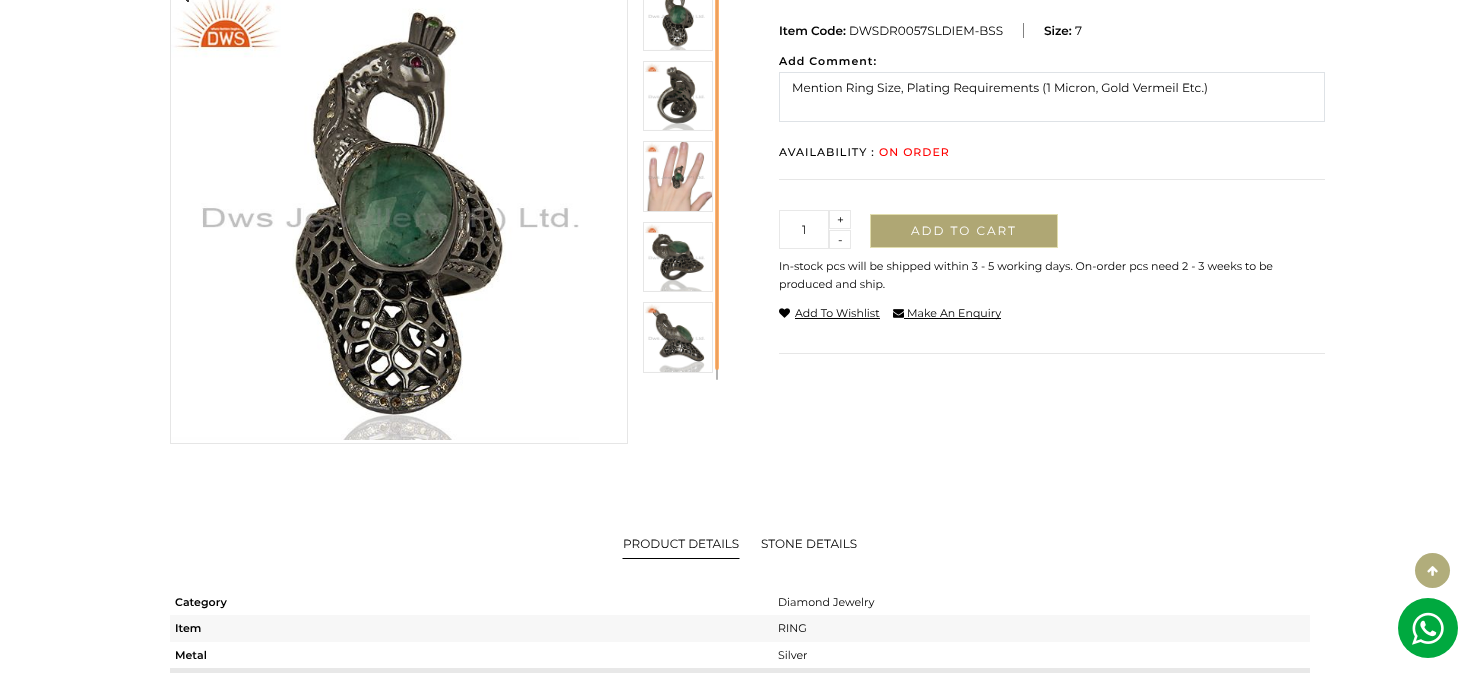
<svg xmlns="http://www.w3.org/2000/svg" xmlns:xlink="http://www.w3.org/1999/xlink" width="1480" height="673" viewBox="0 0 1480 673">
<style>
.cls-1{font:600 12px Montserrat;fill:#000000}
.cls-2{font:12px Montserrat;fill:#000000}
.cls-3{font:600 11px Montserrat;letter-spacing:1px;fill:#000000}
.cls-4{font:500 11px Montserrat;letter-spacing:1px;fill:#000000}
.cls-5{font:500 11px Montserrat;letter-spacing:1px;fill:#ff0000}
.cls-6{font:12px Montserrat;fill:#232323}
.cls-7{font:12px Montserrat;letter-spacing:2px;fill:#ffffff}
.cls-8{font:11px Montserrat;fill:#000000}
.cls-9{font:600 11px Montserrat;fill:#000000}
</style>
<rect width="100%" height="100%" fill="#ffffff"/>
<rect fill="none" stroke="#e6e6e6" x="170.5" y="-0.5" width="457" height="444"/>
<image xlink:href="image0.png" x="171" y="0" width="408" height="440"/>
<image xlink:href="image1.png" x="186" y="0" width="3" height="2"/>
<rect fill="none" stroke="#e6e6e6" x="643.5" y="-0.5" width="69" height="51"/>
<image xlink:href="image2.png" x="648" y="0" width="57" height="50"/>
<rect fill="none" stroke="#e6e6e6" x="643.5" y="61.5" width="69" height="69"/>
<image xlink:href="image3.png" x="645" y="63" width="60" height="67"/>
<rect fill="none" stroke="#e6e6e6" x="643.5" y="141.5" width="69" height="70"/>
<image xlink:href="image4.png" x="645" y="142" width="67" height="69"/>
<rect fill="none" stroke="#e6e6e6" x="643.5" y="222.5" width="69" height="69"/>
<image xlink:href="image5.png" x="645" y="224" width="60" height="67"/>
<rect fill="none" stroke="#e6e6e6" x="643.5" y="302.5" width="69" height="70"/>
<image xlink:href="image6.png" x="645" y="304" width="60" height="68"/>
<rect fill="#b3b3b3" x="716" y="-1" width="2" height="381" rx="1"/>
<rect fill="#ff9b43" fill-opacity="0.75" x="715" y="-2" width="4" height="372" rx="2"/>
<rect fill="#828282" x="1023" y="23" width="1" height="15"/>
<rect fill="none" stroke="#dee2e6" x="779.5" y="72.5" width="545" height="49"/>
<rect fill="#e6e6e6" x="779" y="179" width="546" height="1"/>
<rect fill="none" stroke="#e8e8e8" x="829.5" y="210.5" width="21" height="18"/>
<rect fill="none" stroke="#e8e8e8" x="779.5" y="210.5" width="49" height="38"/>
<rect fill="none" stroke="#e8e8e8" x="829.5" y="230.5" width="21" height="18"/>
<rect fill="#afa774" stroke="#e1ddad" x="870.5" y="214.5" width="187" height="33"/>
<image xlink:href="image7.png" x="779" y="308" width="11" height="10"/>
<rect fill="#000000" x="795" y="318" width="85" height="1"/>
<image xlink:href="image8.png" x="893" y="309" width="11" height="9"/>
<rect fill="#000000" x="904" y="318" width="97" height="1"/>
<rect fill="#e6e6e6" x="779" y="353" width="546" height="1"/>
<path fill="#000000" d="M740 559L739 558H623L622 559Z"/>
<rect fill="#f7f7f7" x="170" y="615" width="1140" height="27"/>
<rect fill="#e8e8e8" x="170" y="668" width="1140" height="5"/>
<circle fill="#b1ad7b" cx="1432.5" cy="570.5" r="17.5"/>
<image xlink:href="image9.png" x="1427" y="566" width="11" height="10"/>
<circle fill="#00a93f" cx="1428" cy="628" r="30"/>
<image xlink:href="image10.png" x="1412" y="612" width="32" height="33"/>
<text class="cls-1" x="779" y="35">Item Code:</text>
<text class="cls-2" x="849" y="35">DWSDR0057SLDIEM-BSS</text>
<text class="cls-1" x="1044" y="35">Size:</text>
<text class="cls-2" x="1075" y="35">7</text>
<text class="cls-3" x="779" y="65">Add Comment:</text>
<text class="cls-2" x="792" y="92">Mention Ring Size, Plating Requirements (1 Micron, Gold Vermeil Etc.)</text>
<text class="cls-4" x="779" y="156">AVAILABILITY :</text>
<text class="cls-5" x="879" y="156">ON ORDER</text>
<text class="cls-2" x="837" y="224">+</text>
<text class="cls-6" x="802" y="234">1</text>
<text class="cls-2" x="838" y="244">-</text>
<text class="cls-7" x="911" y="235">ADD TO CART</text>
<text class="cls-8"><tspan x="779" y="270">In-stock pcs will be shipped within 3 - 5 working days. On-order pcs need 2 - 3 weeks to be</tspan><tspan x="779" y="288">produced and ship.</tspan></text>
<text class="cls-8" x="795" y="317">Add To Wishlist</text>
<text class="cls-8" x="907" y="317">Make An Enquiry</text>
<text class="cls-2" x="623" y="548">PRODUCT DETAILS</text>
<text class="cls-2" x="761" y="548">STONE DETAILS</text>
<text class="cls-9" x="175" y="606">Category</text>
<text class="cls-8" x="778" y="606">Diamond Jewelry</text>
<text class="cls-9" x="175" y="632">Item</text>
<text class="cls-8" x="778" y="632">RING</text>
<text class="cls-9" x="175" y="659">Metal</text>
<text class="cls-8" x="778" y="659">Silver</text>
</svg>
